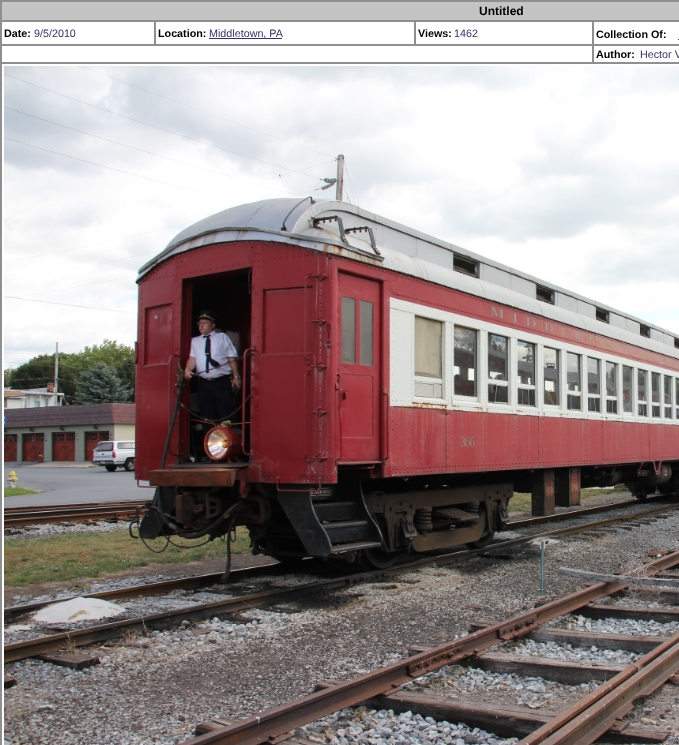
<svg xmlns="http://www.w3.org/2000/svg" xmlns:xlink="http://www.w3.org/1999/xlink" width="679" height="745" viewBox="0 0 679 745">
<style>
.cls-1{font:bold 12px Liberation Sans;fill:#000000}
.cls-2{font:bold 10.75px Liberation Sans;fill:#000000}
.cls-3{font:10.75px Liberation Sans;fill:#333366}
</style>
<rect width="100%" height="100%" fill="#ffffff"/>
<rect fill="none" stroke="#8f8f8f" x="0.5" y="0.5" width="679" height="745"/>
<rect fill="#c4c4c4" stroke="#8f8f8f" x="1.5" y="1.5" width="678" height="19"/>
<rect fill="none" stroke="#8f8f8f" x="1.5" y="21.5" width="153" height="23"/>
<rect fill="none" stroke="#8f8f8f" x="155.5" y="21.5" width="259" height="23"/>
<rect fill="#333366" x="209" y="38" width="73" height="1"/>
<rect fill="none" stroke="#8f8f8f" x="415.5" y="21.5" width="177" height="23"/>
<rect fill="none" stroke="#8f8f8f" x="593.5" y="21.5" width="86" height="23"/>
<rect fill="#333366" x="678" y="39" width="1" height="1"/>
<rect fill="none" stroke="#8f8f8f" x="1.5" y="45.5" width="591" height="17"/>
<rect fill="none" stroke="#8f8f8f" x="593.5" y="45.5" width="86" height="17"/>
<rect fill="none" stroke="#8f8f8f" x="1.5" y="63.5" width="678" height="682"/>
<image xlink:href="image0.png" x="4" y="66" width="675" height="679"/>
<text class="cls-1" x="479" y="15">Untitled</text>
<text class="cls-2" x="4" y="37">Date:</text>
<text class="cls-3" x="34" y="37">9/5/2010</text>
<text class="cls-2" x="158" y="37">Location:</text>
<text class="cls-3" x="209" y="37">Middletown, PA</text>
<text class="cls-2" x="418" y="37">Views:</text>
<text class="cls-3" x="454" y="37">1462</text>
<text class="cls-2"><tspan x="596" y="38">Collection Of:</tspan><tspan x="596" y="58">Author:</tspan></text>
<text class="cls-3" x="640" y="58">Hector V</text>
</svg>
